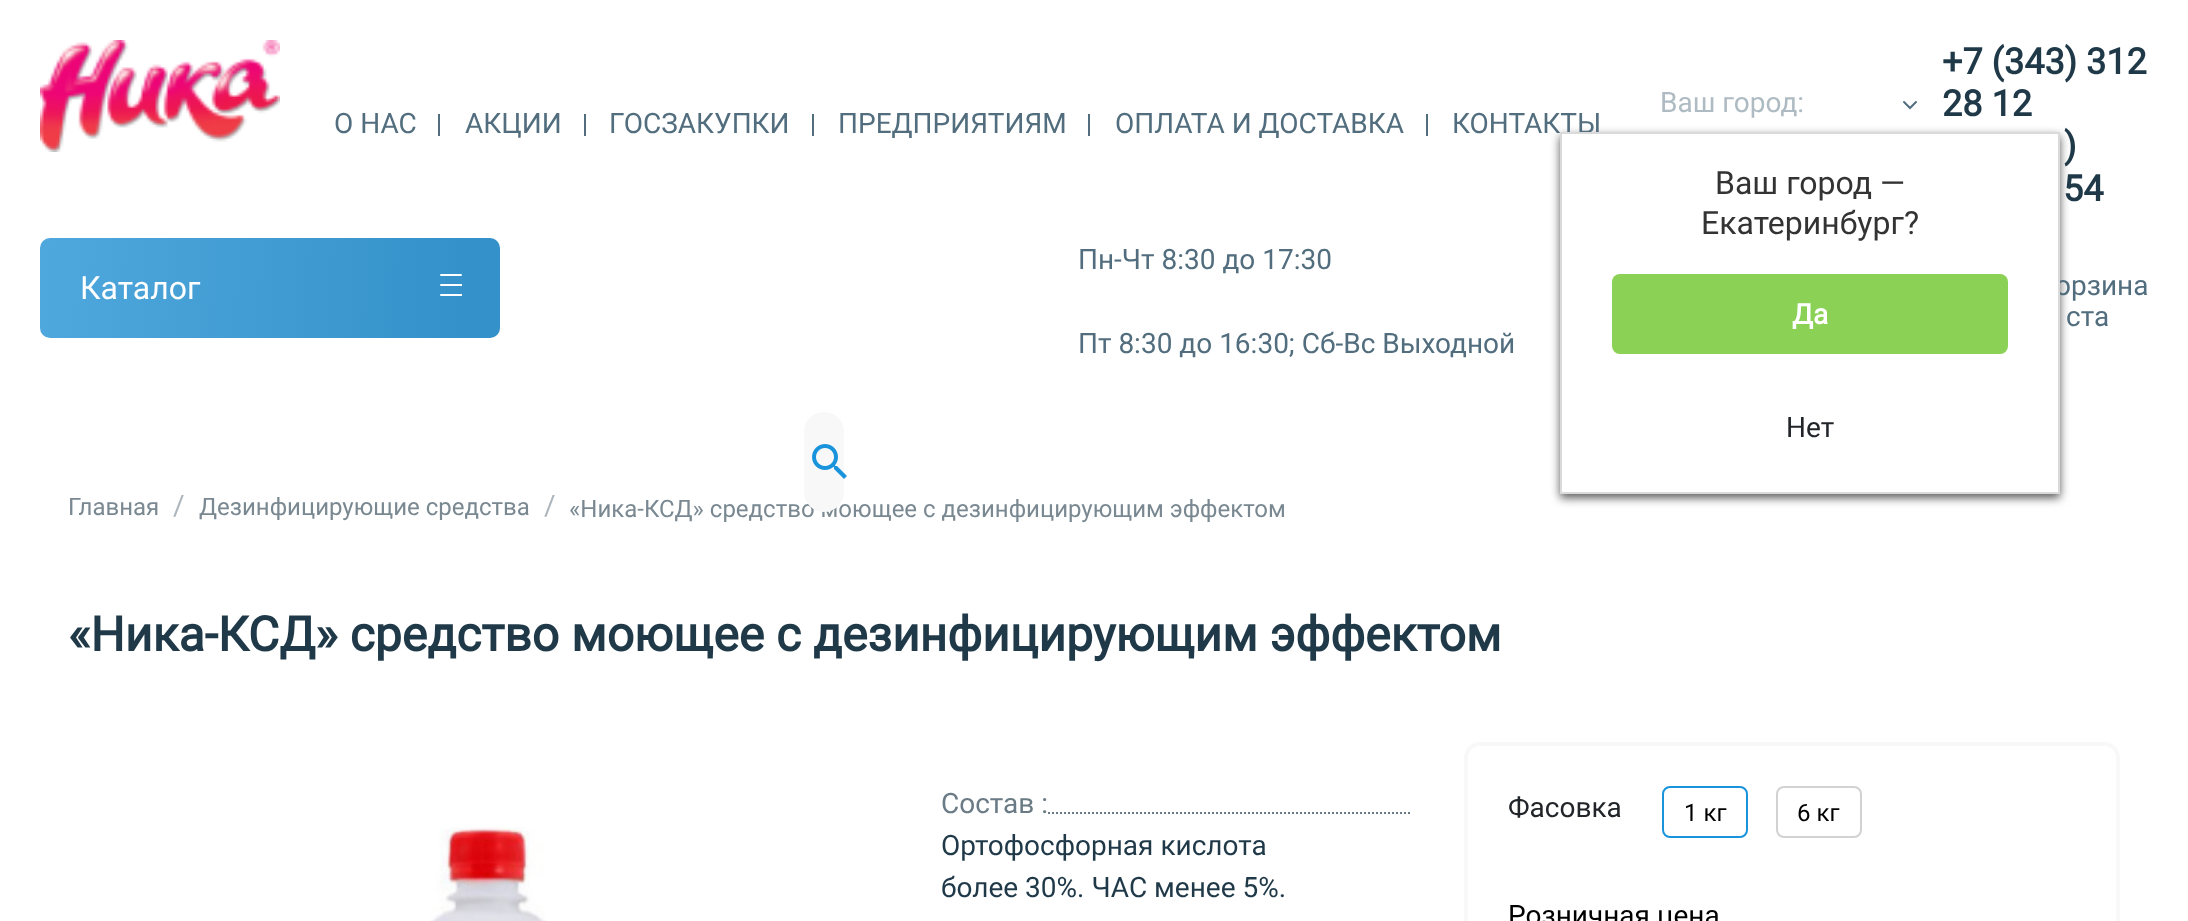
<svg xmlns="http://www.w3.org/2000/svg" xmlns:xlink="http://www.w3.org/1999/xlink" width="2188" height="921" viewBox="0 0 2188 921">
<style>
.cls-1{font:28px Roboto;fill:#526e7e}
.cls-2{font:28px Roboto;fill:#aebbc2}
.cls-3{font:bold 36px Roboto;fill:#1f3948}
.cls-4{font:32px Roboto;fill:#ffffff}
.cls-5{font:28px Roboto;fill:#212529}
.cls-6{font:bold 28px Roboto;fill:#ffffff}
.cls-7{font:32px Roboto;fill:#333333}
.cls-8{font:24px Roboto;fill:#798891}
.cls-9{font:28px Roboto;fill:#adb5bd}
.cls-10{font:bold 48px Roboto;fill:#1f3948}
.cls-11{font:28px Roboto;fill:#6a7b85}
.cls-12{font:28px Roboto;fill:#1f3948}
.cls-13{font:24px Roboto;fill:#000000}
.cls-14{font:28px Roboto;fill:#000000}
</style>
<defs>
<linearGradient id="g1" gradientUnits="userSpaceOnUse" x1="38" y1="277" x2="502" y2="299"><stop offset="0" stop-color="#4fa8dd"/><stop offset="0.93" stop-color="#3491c9"/></linearGradient>
</defs>
<rect width="100%" height="100%" fill="#ffffff"/>
<image xlink:href="image0.png" x="40" y="40" width="240" height="112"/>
<rect fill="#526e7e" x="438" y="114" width="2" height="22"/>
<rect fill="#526e7e" x="584" y="114" width="2" height="22"/>
<rect fill="#526e7e" x="812" y="114" width="2" height="22"/>
<rect fill="#526e7e" x="1088" y="114" width="2" height="22"/>
<rect fill="#526e7e" x="1426" y="114" width="2" height="22"/>
<path fill="none" stroke="#526e7e" stroke-width="2" stroke-linecap="round" d="M1904 102L1910 108L1916 102"/>
<rect fill="#5b5a5a" filter="blur(5px)" x="1560" y="136" width="500" height="362"/>
<rect fill="url(#g1)" x="40" y="238" width="460" height="100" rx="10"/>
<image xlink:href="image1.png" x="440" y="274" width="22" height="22"/>
<image xlink:href="image3.png" x="430" y="827" width="116" height="94"/>
<path fill="none" stroke="#6a7b85" stroke-width="2" stroke-dasharray="2 2" d="M1048 813H1412"/>
<rect fill="none" stroke="#f8f8f8" stroke-width="4" x="1466" y="744" width="652" height="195" rx="14"/>
<rect fill="none" stroke="#1994dc" stroke-width="2" x="1663" y="787" width="84" height="50" rx="7"/>
<rect fill="none" stroke="#d2d2d2" stroke-width="2" x="1777" y="787" width="84" height="50" rx="7"/>
<text class="cls-1" x="334" y="133">О НАС</text>
<text class="cls-1" x="465" y="133">АКЦИИ</text>
<text class="cls-1" x="609" y="133">ГОСЗАКУПКИ</text>
<text class="cls-1" x="838" y="133">ПРЕДПРИЯТИЯМ</text>
<text class="cls-1" x="1115" y="133">ОПЛАТА И ДОСТАВКА</text>
<text class="cls-1" x="1452" y="133">КОНТАКТЫ</text>
<text class="cls-2" x="1660" y="112">Ваш город:</text>
<text class="cls-3"><tspan x="1942" y="74">+7 (343) 312</tspan><tspan x="1942" y="116">28 12</tspan></text>
<text class="cls-3" x="2064" y="158">)</text>
<text class="cls-3" x="2063" y="201">54</text>
<text class="cls-4" x="80" y="299">Каталог</text>
<text class="cls-1" x="1078" y="269">Пн-Чт 8:30 до 17:30</text>
<text class="cls-1" x="1078" y="353">Пт 8:30 до 16:30; Сб-Вс Выходной</text>
<text class="cls-1" x="2055" y="295">орзина</text>
<rect fill="#ffffff" stroke="#dadada" stroke-width="2" x="1561" y="133" width="498" height="360"/>
<text class="cls-5" x="1786" y="437">Нет</text>
<rect fill="#8bd155" x="1612" y="274" width="396" height="80" rx="8"/>
<text class="cls-6" x="1792" y="324">Да</text>
<text class="cls-7" x="1701" y="234">Екатеринбург?</text>
<text class="cls-7" x="1715" y="194">Ваш город —</text>
<text class="cls-1" x="2066" y="326">ста</text>
<text class="cls-8" x="68" y="515">Главная</text>
<text class="cls-9" x="173" y="515">/</text>
<text class="cls-8" x="199" y="515">Дезинфицирующие средства</text>
<text class="cls-9" x="544" y="515">/</text>
<text class="cls-8" x="569" y="517">«Ника-КСД» средство моющее с дезинфицирующим эффектом</text>
<rect fill="#f8f8f8" x="804" y="412" width="40" height="100" rx="20"/>
<image xlink:href="image2.png" x="812" y="444" width="35" height="35"/>
<text class="cls-10" x="68" y="651">«Ника-КСД» средство моющее с дезинфицирующим эффектом</text>
<text class="cls-11" x="941" y="813">Состав :</text>
<text class="cls-12"><tspan x="941" y="855">Ортофосфорная кислота</tspan><tspan x="941" y="897">более 30%. ЧАС менее 5%.</tspan></text>
<text class="cls-5" x="1508" y="817">Фасовка</text>
<text class="cls-13" x="1684" y="821">1 кг</text>
<text class="cls-13" x="1797" y="821">6 кг</text>
<text class="cls-14" x="1508" y="925">Розничная цена</text>
</svg>
